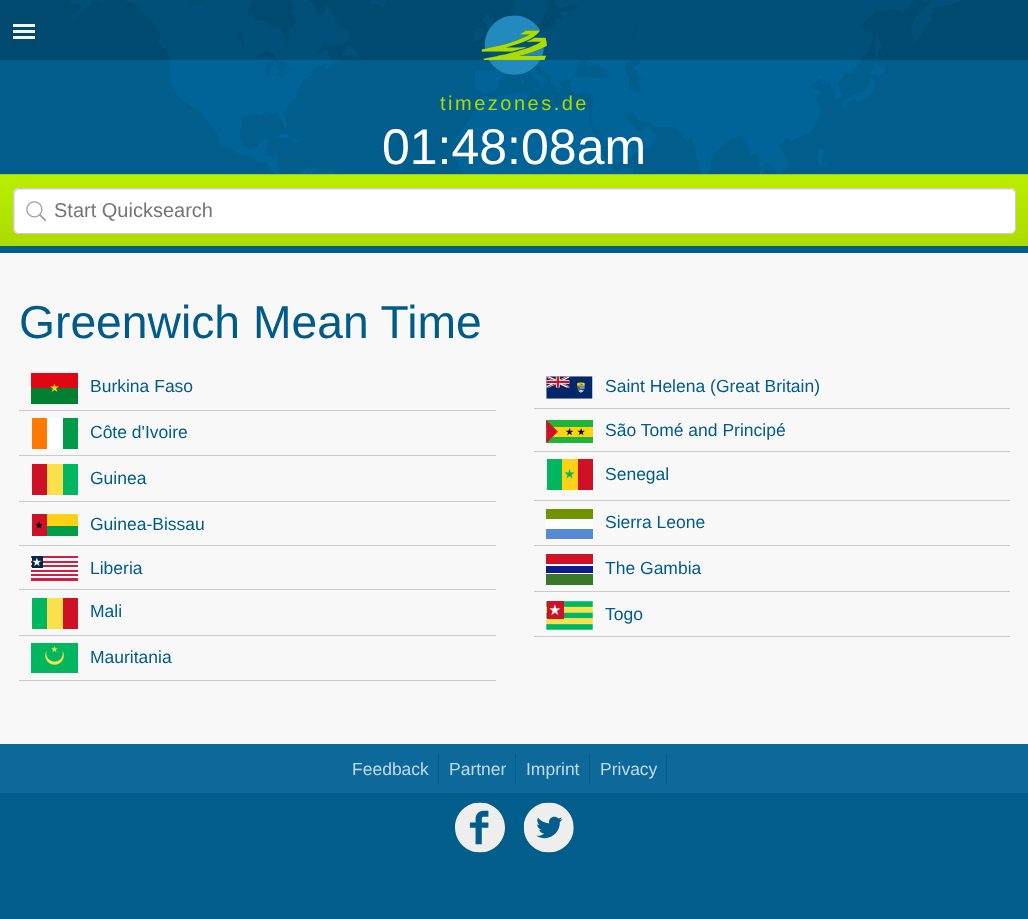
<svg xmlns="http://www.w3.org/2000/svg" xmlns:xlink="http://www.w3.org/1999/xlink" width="1028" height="919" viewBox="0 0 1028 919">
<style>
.cls-1{font:20px Liberation Sans;letter-spacing:2.5px;fill:#acdb00}
.cls-2{font:50px Liberation Sans;fill:#ffffff}
.cls-3{font:20px Liberation Sans;fill:#757575}
.cls-4{font:46.25px Liberation Sans;fill:#005b8b}
.cls-5{font:17.5px Liberation Sans;fill:#005b8b}
.cls-6{font:17.5px Liberation Sans;fill:#c1dbed}
</style>
<defs>
<linearGradient id="g1" gradientUnits="userSpaceOnUse" x1="514" y1="175" x2="514" y2="246"><stop offset="0" stop-color="#bbee00"/><stop offset="0.47" stop-color="#b4e500"/><stop offset="1" stop-color="#acdb00"/></linearGradient>
</defs>
<rect width="100%" height="100%" fill="#005d8c"/>
<image xlink:href="image0.png" x="66" y="0" width="895" height="174"/>
<rect fill="#000000" fill-opacity="0.2" x="0" y="0" width="1028" height="60"/>
<rect fill="#f5f5f5" x="13" y="24" width="22" height="3"/>
<rect fill="#f5f5f5" x="13" y="30" width="22" height="3"/>
<rect fill="#f5f5f5" x="13" y="36" width="22" height="3"/>
<image xlink:href="image1.png" x="481" y="15" width="66" height="60"/>
<rect fill="url(#g1)" x="0" y="175" width="1028" height="71"/>
<rect fill="#96d11c" x="0" y="174" width="1028" height="1"/>
<rect fill="#ffffff" x="13" y="188" width="1003" height="46" rx="6"/>
<image xlink:href="image2.png" x="26" y="201" width="20" height="20"/>
<path fill="#e5e5e5" d="M20 190H1011L1014 191C1013 190 1011 189 1010 189H19C16 189 14 191 14 194V228C14 229 15 231 16 232L15 229V195C15 192 17 190 20 190Z"/>
<rect fill="none" stroke="#cccccc" x="13.5" y="188.5" width="1002" height="45" rx="5.5"/>
<rect fill="#f8f8f8" x="0" y="253" width="1028" height="491"/>
<rect fill="#cbcbcb" x="19" y="410" width="477" height="1"/>
<rect fill="#df0714" x="31" y="373" width="47" height="15"/>
<rect fill="#018031" x="31" y="388" width="47" height="16"/>
<path fill="#fdd116" d="M54.5 383.5L53.5 386.5H50L53 388.5L51.5 392L54.5 390L57.5 392L56 388.5L59 386.5H55.5Z"/>
<rect fill="#cbcbcb" x="19" y="455" width="477" height="1"/>
<rect fill="#009b48" x="63" y="418" width="15" height="31"/>
<rect fill="#ff7900" x="32" y="418" width="15" height="31"/>
<rect fill="#ffffff" x="47" y="418" width="16" height="31"/>
<rect fill="#cbcbcb" x="19" y="501" width="477" height="1"/>
<rect fill="#00b760" x="63" y="464" width="15" height="31"/>
<rect fill="#ce1126" x="32" y="464" width="15" height="31"/>
<rect fill="#f9e04c" x="47" y="464" width="16" height="31"/>
<rect fill="#cbcbcb" x="19" y="545" width="477" height="1"/>
<rect fill="#ce1126" x="32" y="514" width="15" height="22"/>
<rect fill="#fcd116" x="47" y="514" width="31" height="12"/>
<rect fill="#009e49" x="47" y="526" width="31" height="10"/>
<path fill="#000000" d="M39 521.5L38 524H35.5L37.5 526L36.5 528.5L39 527L41.5 528.5L40.5 526L42.5 524H40Z"/>
<rect fill="#cbcbcb" x="19" y="589" width="477" height="1"/>
<image xlink:href="image3.png" x="31" y="556" width="47" height="25"/>
<rect fill="#cbcbcb" x="19" y="635" width="477" height="1"/>
<rect fill="#ce1126" x="63" y="598" width="15" height="31"/>
<rect fill="#00b760" x="32" y="598" width="15" height="31"/>
<rect fill="#f9e04c" x="47" y="598" width="16" height="31"/>
<rect fill="#cbcbcb" x="19" y="680" width="477" height="1"/>
<image xlink:href="image4.png" x="31" y="643" width="47" height="30"/>
<rect fill="#cbcbcb" x="534" y="408" width="476" height="1"/>
<image xlink:href="image5.png" x="546" y="376" width="47" height="23"/>
<rect fill="#cbcbcb" x="534" y="451" width="476" height="1"/>
<image xlink:href="image6.png" x="546" y="420" width="47" height="23"/>
<rect fill="#cbcbcb" x="534" y="500" width="476" height="1"/>
<rect fill="#fcd116" x="562" y="459" width="16" height="31"/>
<rect fill="#ce1126" x="578" y="459" width="15" height="31"/>
<rect fill="#00b760" x="547" y="459" width="15" height="31"/>
<path fill="#00b760" d="M569.5 469L568.5 472.5H564.5L567.5 475L566.5 478.5L569.5 476L572.5 478.5L571.5 475L574.5 472.5H570.5Z"/>
<rect fill="#cbcbcb" x="534" y="545" width="476" height="1"/>
<rect fill="#709302" x="546" y="509" width="47" height="10"/>
<rect fill="#578ad6" x="546" y="529" width="47" height="10"/>
<rect fill="#ffffff" x="546" y="519" width="47" height="10"/>
<rect fill="#cbcbcb" x="534" y="591" width="476" height="1"/>
<rect fill="#ce1126" x="546" y="554" width="47" height="10"/>
<rect fill="#3a7728" x="546" y="574" width="47" height="11"/>
<rect fill="#ffffff" x="546" y="564" width="47" height="2"/>
<rect fill="#ffffff" x="546" y="573" width="47" height="1"/>
<rect fill="#0c1c8c" x="546" y="566" width="47" height="7"/>
<rect fill="#cbcbcb" x="534" y="636" width="476" height="1"/>
<image xlink:href="image7.png" x="546" y="601" width="47" height="29"/>
<rect fill="#0e699b" x="0" y="744" width="1028" height="49"/>
<rect fill="#005d8c" x="438" y="754" width="1" height="30"/>
<rect fill="#005d8c" x="515" y="754" width="1" height="30"/>
<rect fill="#005d8c" x="589" y="754" width="1" height="30"/>
<rect fill="#005d8c" x="666" y="754" width="1" height="30"/>
<image xlink:href="image8.png" x="455" y="802" width="50" height="51"/>
<image xlink:href="image9.png" x="523" y="802" width="51" height="51"/>
<text class="cls-1" x="440" y="110">timezones.de</text>
<text class="cls-2" x="382" y="164">01:48:08am</text>
<text class="cls-3" x="54" y="217">Start Quicksearch</text>
<text class="cls-4" x="19" y="338">Greenwich Mean Time</text>
<text class="cls-5" x="90" y="392">Burkina Faso</text>
<text class="cls-5" x="90" y="438">Côte d'Ivoire</text>
<text class="cls-5" x="90" y="484">Guinea</text>
<text class="cls-5" x="90" y="530">Guinea-Bissau</text>
<text class="cls-5" x="90" y="574">Liberia</text>
<text class="cls-5" x="90" y="617">Mali</text>
<text class="cls-5" x="90" y="663">Mauritania</text>
<text class="cls-5" x="605" y="392">Saint Helena (Great Britain)</text>
<text class="cls-5" x="605" y="436">São Tomé and Principé</text>
<text class="cls-5" x="605" y="480">Senegal</text>
<text class="cls-5" x="605" y="528">Sierra Leone</text>
<text class="cls-5" x="605" y="574">The Gambia</text>
<text class="cls-5" x="605" y="620">Togo</text>
<text class="cls-6" x="352" y="775">Feedback</text>
<text class="cls-6" x="449" y="775">Partner</text>
<text class="cls-6" x="526" y="775">Imprint</text>
<text class="cls-6" x="600" y="775">Privacy</text>
</svg>
